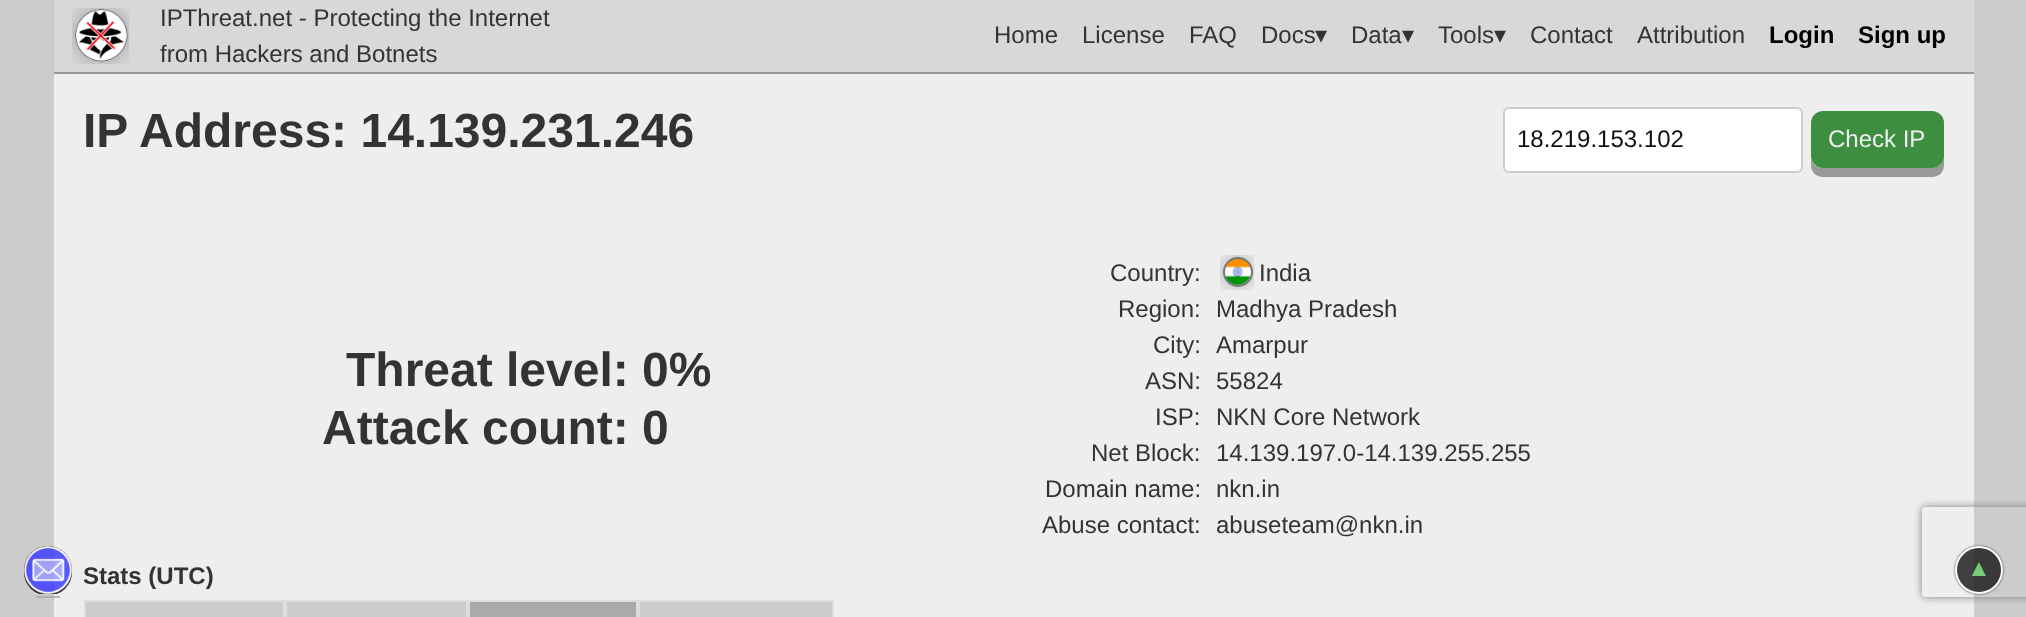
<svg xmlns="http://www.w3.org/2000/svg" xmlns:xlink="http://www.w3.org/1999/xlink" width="2026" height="617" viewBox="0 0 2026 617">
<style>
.cls-1{font:24px Liberation Sans;fill:#333333}
.cls-2{font:24px DejaVu Sans;fill:#333333}
.cls-3{font:bold 24px Liberation Sans;fill:#000000}
.cls-4{font:bold 48px Liberation Sans;fill:#333333}
.cls-5{font:24px Liberation Sans;fill:#111111}
.cls-6{font:24px Liberation Sans;fill:#eeeeee}
.cls-7{font:bold 24px Liberation Sans;fill:#333333}
.cls-8{font:24px Liberation Sans;fill:#77cc77}
</style>
<defs>
<clipPath id="clip1"><path d="M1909 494H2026V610H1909ZM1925 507H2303C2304.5 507 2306 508.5 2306 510V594C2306 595.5 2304.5 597 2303 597H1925C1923.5 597 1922 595.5 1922 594V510C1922 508.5 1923.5 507 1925 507Z" clip-rule="evenodd"/></clipPath>
</defs>
<rect width="100%" height="100%" fill="#cccccc"/>
<rect fill="#b1b1b1" x="36" y="596" width="24" height="2"/>
<rect fill="#eeeeee" x="54" y="74" width="1920" height="543"/>
<image xlink:href="image0.png" x="24" y="546" width="48" height="48"/>
<rect fill="#b8b8b8" x="54" y="596" width="6" height="2"/>
<rect fill="#d8d8d8" x="54" y="0" width="1920" height="72"/>
<rect fill="#999999" x="54" y="72" width="1920" height="2"/>
<image xlink:href="image1.png" x="72" y="8" width="57" height="56"/>
<rect fill="#ffffff" stroke="#cccccc" stroke-width="2" x="1504" y="108" width="298" height="64" rx="5"/>
<path fill="#999999" d="M1811 159V165C1811 172 1816 177 1823 177H1932C1939 177 1944 172 1944 165V156C1944 163 1939 168 1932 168H1822C1817 168 1812 164 1811 159Z"/>
<rect fill="#3e8e41" x="1811" y="111" width="133" height="57" rx="12"/>
<image xlink:href="image2.png" x="1220" y="255" width="34" height="35"/>
<circle fill="none" stroke="#777777" stroke-width="2" cx="1238" cy="272" r="14"/>
<rect fill="#cccccc" stroke="#dddddd" stroke-width="2" x="85" y="601" width="199" height="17"/>
<rect fill="#cccccc" stroke="#dddddd" stroke-width="2" x="286" y="601" width="181" height="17"/>
<rect fill="#aaaaaa" stroke="#dddddd" stroke-width="2" x="469" y="601" width="168" height="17"/>
<rect fill="#cccccc" stroke="#dddddd" stroke-width="2" x="639" y="601" width="194" height="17"/>
<rect fill="#141414" fill-opacity="0.8" filter="blur(1px)" x="1955" y="546" width="48" height="48" rx="24"/>
<circle fill="none" stroke="#ffffff" stroke-width="2" cx="1979" cy="570" r="23"/>
<g clip-path="url(#clip1)">
<rect fill="#808080" filter="blur(4px)" x="1922" y="507" width="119" height="90" rx="3"/>
</g>
<text class="cls-1"><tspan x="160" y="26">IPThreat.net - Protecting the Internet</tspan><tspan x="160" y="62">from Hackers and Botnets</tspan></text>
<text class="cls-1" x="994" y="43">Home</text>
<text class="cls-1" x="1082" y="43">License</text>
<text class="cls-1" x="1189" y="43">FAQ</text>
<text class="cls-1" x="1261" y="43">Docs</text>
<text class="cls-2" x="1315" y="43">▾</text>
<text class="cls-1" x="1351" y="43">Data</text>
<text class="cls-2" x="1402" y="43">▾</text>
<text class="cls-1" x="1438" y="43">Tools</text>
<text class="cls-2" x="1494" y="43">▾</text>
<text class="cls-1" x="1530" y="43">Contact</text>
<text class="cls-1" x="1637" y="43">Attribution</text>
<text class="cls-3" x="1769" y="43">Login</text>
<text class="cls-3" x="1858" y="43">Sign up</text>
<text class="cls-4" x="83" y="147">IP Address: 14.139.231.246</text>
<text class="cls-5" x="1517" y="147">18.219.153.102</text>
<text class="cls-6" x="1828" y="147">Check IP</text>
<text class="cls-4" x="346" y="386">Threat level: 0%</text>
<text class="cls-4" x="322" y="444">Attack count: 0</text>
<text class="cls-1" x="1110" y="281">Country:</text>
<text class="cls-1" x="1259" y="281">India</text>
<text class="cls-1" x="1118" y="317">Region:</text>
<text class="cls-1" x="1216" y="317">Madhya Pradesh</text>
<text class="cls-1" x="1153" y="353">City:</text>
<text class="cls-1" x="1216" y="353">Amarpur</text>
<text class="cls-1" x="1145" y="389">ASN:</text>
<text class="cls-1" x="1216" y="389">55824</text>
<text class="cls-1" x="1155" y="425">ISP:</text>
<text class="cls-1" x="1216" y="425">NKN Core Network</text>
<text class="cls-1" x="1091" y="461">Net Block:</text>
<text class="cls-1" x="1216" y="461">14.139.197.0-14.139.255.255</text>
<text class="cls-1" x="1045" y="497">Domain name:</text>
<text class="cls-1" x="1216" y="497">nkn.in</text>
<text class="cls-1" x="1042" y="533">Abuse contact:</text>
<text class="cls-1" x="1216" y="533">abuseteam@nkn.in</text>
<text class="cls-7" x="83" y="584">Stats (UTC)</text>
<text class="cls-8" x="1967" y="576">▲</text>
</svg>
